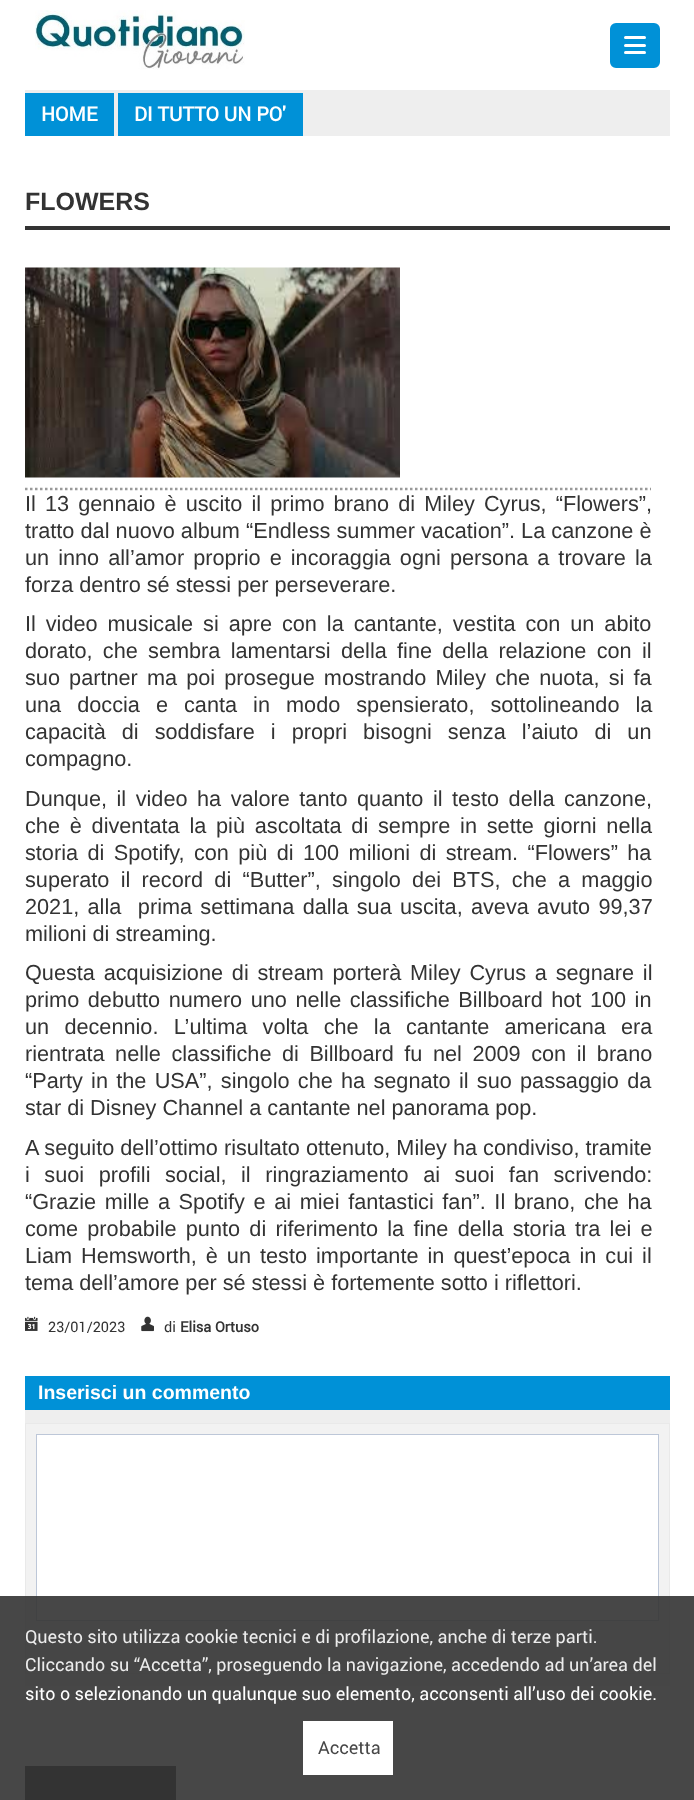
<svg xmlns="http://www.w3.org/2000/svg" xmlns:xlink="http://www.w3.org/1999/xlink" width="694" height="1800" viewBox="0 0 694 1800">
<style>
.cls-1{font:bold 19.75px Roboto;fill:#ffffff}
.cls-2{font:bold 25px Liberation Sans;fill:#333333}
.cls-3{font:21.7px Liberation Sans;fill:#333333}
.cls-4{font:14.5px Roboto;fill:#333333}
.cls-5{font:bold 14.5px Roboto;fill:#333333}
.cls-6{font:bold 19.5px Liberation Sans;fill:#ffffff}
.cls-7{font:18px Roboto;fill:#ececec}
.cls-8{font:18px Roboto;fill:#ffffff}
.cls-9{font:18px Roboto;fill:#474747}
</style>
<rect width="100%" height="100%" fill="#ffffff"/>
<rect fill="#eeeeee" x="25" y="90" width="645" height="3"/>
<image xlink:href="image0.png" x="35" y="10" width="210" height="60"/>
<rect fill="#0091d7" stroke="#0091d7" stroke-width="3" x="611.5" y="24.5" width="47" height="42" rx="4.5"/>
<rect fill="#ffffff" x="624" y="36" width="22" height="3" rx="1.5"/>
<rect fill="#ffffff" x="624" y="44" width="22" height="3" rx="1.5"/>
<rect fill="#ffffff" x="624" y="51" width="22" height="3" rx="1.5"/>
<rect fill="#eeeeee" x="114" y="93" width="556" height="43"/>
<rect fill="#0091d7" x="25" y="93" width="89" height="43"/>
<rect fill="#0091d7" x="118" y="93" width="185" height="43"/>
<rect fill="#333333" x="25" y="226" width="645" height="4"/>
<path fill="none" stroke="#999999" stroke-width="2.5" stroke-dasharray="2.5 2.5" d="M25 489H651"/>
<image xlink:href="image1.png" x="25" y="267" width="375" height="211"/>
<image xlink:href="image2.png" x="25" y="1316" width="13" height="15"/>
<image xlink:href="image3.png" x="141" y="1316" width="13" height="16"/>
<rect fill="#eeeeee" x="25" y="1410" width="645" height="276"/>
<rect fill="#0091d7" x="25" y="1376" width="645" height="34"/>
<rect fill="#f2f2f2" stroke="#e9e9e9" x="25.5" y="1423.5" width="644" height="250"/>
<rect fill="#ffffff" stroke="#bdc7d8" x="36.5" y="1434.5" width="622" height="186"/>
<rect fill="#333333" x="25" y="1766" width="151" height="34"/>
<rect fill="#333333" fill-opacity="0.9" x="0" y="1596" width="694" height="204"/>
<rect fill="#ffffff" x="303" y="1721" width="90" height="54"/>
<text class="cls-1" x="41" y="121">HOME</text>
<text class="cls-1" x="134" y="121">DI TUTTO UN PO'</text>
<text class="cls-2" x="25" y="210">FLOWERS</text>
<text class="cls-3" xml:space="preserve"><tspan x="25" y="511" word-spacing="3.1">Il 13 gennaio è uscito il primo brano di Miley Cyrus, “Flowers”,</tspan><tspan x="25" y="538" word-spacing="0.1">tratto dal nuovo album “Endless summer vacation”. La canzone è</tspan><tspan x="25" y="565" word-spacing="3">un inno all’amor proprio e incoraggia ogni persona a trovare la</tspan><tspan x="25" y="592">forza dentro sé stessi per perseverare.</tspan><tspan x="25" y="631" word-spacing="3.9">Il video musicale si apre con la cantante, vestita con un abito</tspan><tspan x="25" y="658" word-spacing="4.25">dorato, che sembra lamentarsi della fine della relazione con il</tspan><tspan x="25" y="685" word-spacing="3.1">suo partner ma poi prosegue mostrando Miley che nuota, si fa</tspan><tspan x="25" y="712" word-spacing="10">una doccia e canta in modo spensierato, sottolineando la</tspan><tspan x="25" y="739" word-spacing="10">capacità di soddisfare i propri bisogni senza l’aiuto di un</tspan><tspan x="25" y="766">compagno.</tspan><tspan x="25" y="806" word-spacing="3.5">Dunque, il video ha valore tanto quanto il testo della canzone,</tspan><tspan x="25" y="833" word-spacing="3.75">che è diventata la più ascoltata di sempre in sette giorni nella</tspan><tspan x="25" y="860" word-spacing="3.4">storia di Spotify, con più di 100 milioni di stream. “Flowers” ha</tspan><tspan x="25" y="887" word-spacing="5.25">superato il record di “Butter”, singolo dei BTS, che a maggio</tspan><tspan x="25" y="914" word-spacing="2.25">2021, alla  prima settimana dalla sua uscita, aveva avuto 99,37</tspan><tspan x="25" y="941">milioni di streaming.</tspan><tspan x="25" y="980" word-spacing="2.75">Questa acquisizione di stream porterà Miley Cyrus a segnare il</tspan><tspan x="25" y="1007" word-spacing="2.5">primo debutto numero uno nelle classifiche Billboard hot 100 in</tspan><tspan x="25" y="1034" word-spacing="9.25">un decennio. L’ultima volta che la cantante americana era</tspan><tspan x="25" y="1061" word-spacing="4.5">rientrata nelle classifiche di Billboard fu nel 2009 con il brano</tspan><tspan x="25" y="1088" word-spacing="2.25">“Party in the USA”, singolo che ha segnato il suo passaggio da</tspan><tspan x="25" y="1115">star di Disney Channel a cantante nel panorama pop.</tspan><tspan x="25" y="1155">A seguito dell’ottimo risultato ottenuto, Miley ha condiviso, tramite</tspan><tspan x="25" y="1182" word-spacing="8.5">i suoi profili social, il ringraziamento ai suoi fan scrivendo:</tspan><tspan x="25" y="1209" word-spacing="2.6">“Grazie mille a Spotify e ai miei fantastici fan”. Il brano, che ha</tspan><tspan x="25" y="1236" word-spacing="3.25">come probabile punto di riferimento la fine della storia tra lei e</tspan><tspan x="25" y="1263" word-spacing="3">Liam Hemsworth, è un testo importante in quest’epoca in cui il</tspan><tspan x="25" y="1290">tema dell’amore per sé stessi è fortemente sotto i riflettori.</tspan></text>
<text class="cls-4" x="48" y="1332">23/01/2023</text>
<text class="cls-4" x="164" y="1332">di</text>
<text class="cls-5" x="180" y="1332">Elisa Ortuso</text>
<text class="cls-6" x="38" y="1399">Inserisci un commento</text>
<text class="cls-7"><tspan x="25" y="1643">Questo sito utilizza cookie tecnici e di profilazione, anche di terze parti.</tspan><tspan x="25" y="1671">Cliccando su “Accetta”, proseguendo la navigazione, accedendo ad un’area del</tspan></text>
<text class="cls-8" x="25" y="1700">sito o selezionando un qualunque suo elemento, acconsenti all’uso dei cookie.</text>
<text class="cls-9" x="318" y="1754">Accetta</text>
</svg>
